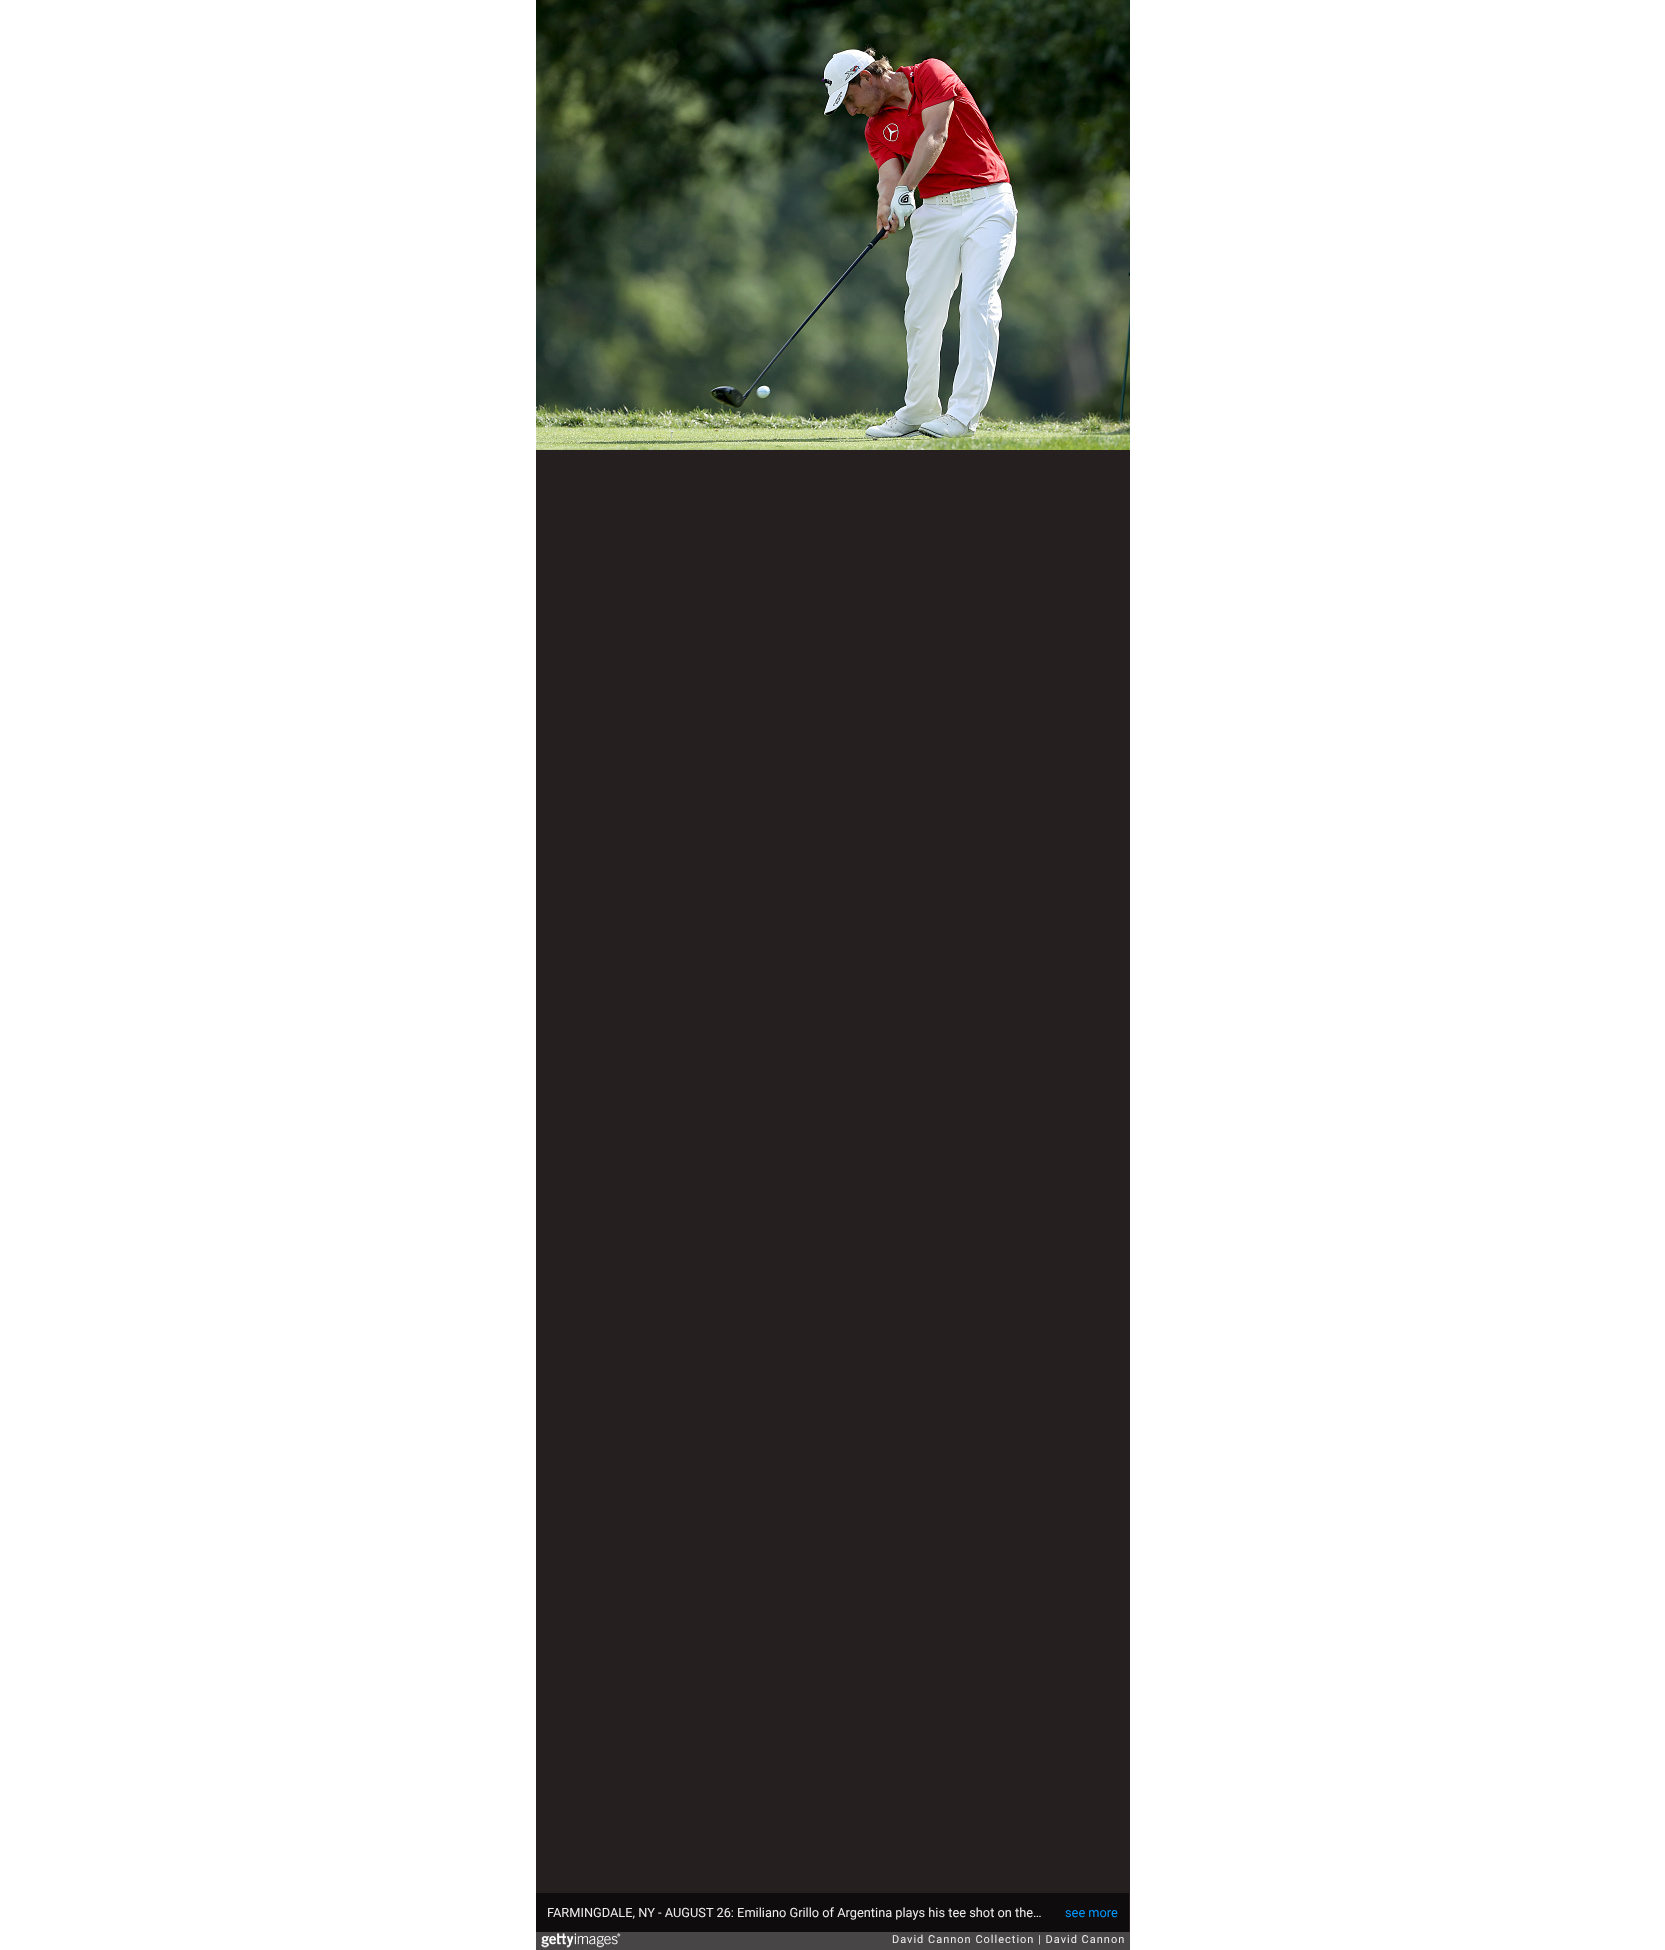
<svg xmlns="http://www.w3.org/2000/svg" xmlns:xlink="http://www.w3.org/1999/xlink" width="1665" height="1950" viewBox="0 0 1665 1950">
<style>
.cls-1{font:12.8px Roboto;fill:#eeeeee}
.cls-2{font:12.8px Roboto;fill:#0099ff}
.cls-3{font:11px Roboto;letter-spacing:1px;fill:#eeeeee}
</style>
<rect width="100%" height="100%" fill="#ffffff"/>
<rect fill="#251f20" x="536" y="450" width="594" height="1482"/>
<image xlink:href="image0.png" x="536" y="0" width="594" height="450"/>
<rect fill="#0f0c0d" x="536" y="1893" width="593" height="39"/>
<rect fill="#474545" x="536" y="1932" width="594" height="18"/>
<image xlink:href="image1.png" x="541" y="1933" width="80" height="15"/>
<text class="cls-1" x="547" y="1917">FARMINGDALE, NY - AUGUST 26: Emiliano Grillo of Argentina plays his tee shot on the…</text>
<text class="cls-2" x="1065" y="1917">see more</text>
<text class="cls-3" x="892" y="1943">David Cannon Collection | David Cannon</text>
</svg>
